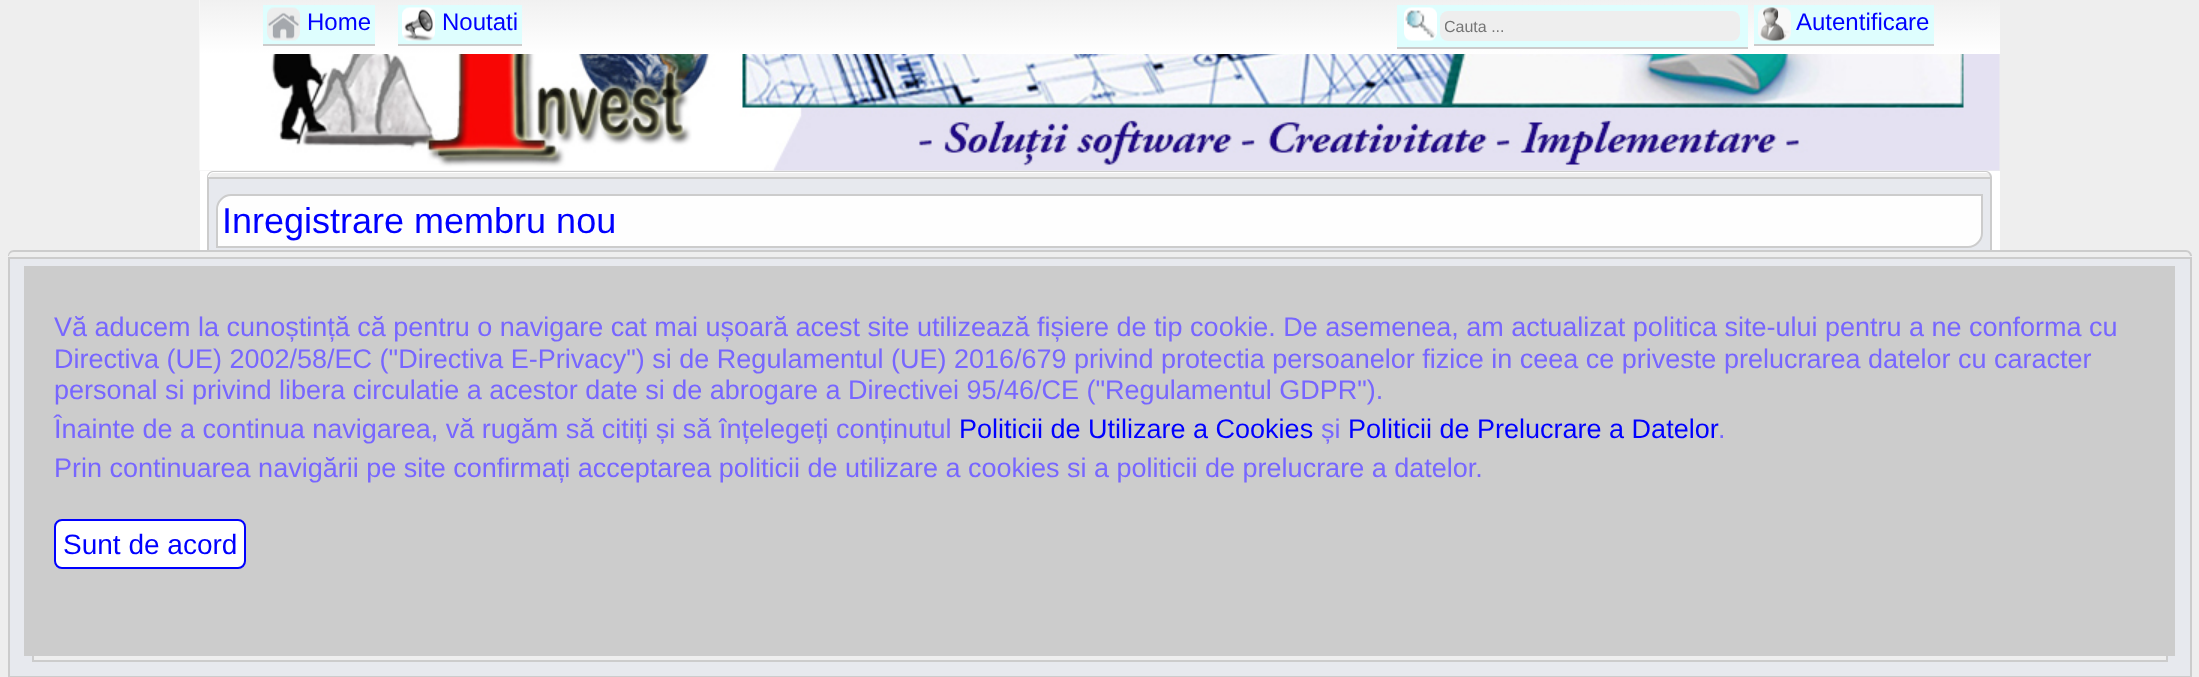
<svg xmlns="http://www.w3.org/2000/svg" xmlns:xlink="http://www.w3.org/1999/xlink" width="2199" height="677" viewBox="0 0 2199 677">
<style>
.cls-1{font:24px Liberation Sans;fill:#0000ff}
.cls-2{font:16px Liberation Sans;fill:#757575}
.cls-3{font:36px Liberation Sans;fill:#0000ff}
.cls-4{font:27px Liberation Sans;fill:#7766ff}
.cls-5{font:27px Liberation Sans;fill:#0000ff}
.cls-6{font:28px Liberation Sans;fill:#0000ff}
</style>
<defs>
<linearGradient id="g1" gradientUnits="userSpaceOnUse" x1="1100" y1="-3" x2="1100" y2="54"><stop offset="0" stop-color="#f0f0f0"/><stop offset="1" stop-color="#ffffff"/></linearGradient>
<clipPath id="clip1"><rect x="1445" y="17" width="291" height="18"/></clipPath>
</defs>
<rect width="100%" height="100%" fill="#eeeeee"/>
<image xlink:href="image4.png" x="199" y="0" width="1801" height="171"/>
<rect fill="url(#g1)" x="200" y="0" width="1800" height="54"/>
<rect fill="#defefe" x="263" y="5" width="112" height="39"/>
<rect fill="#cccccc" x="263" y="44" width="112" height="2"/>
<image xlink:href="image0.png" x="267" y="7" width="33" height="34"/>
<rect fill="#defefe" x="398" y="5" width="124" height="39"/>
<rect fill="#cccccc" x="398" y="44" width="124" height="2"/>
<image xlink:href="image1.png" x="402" y="7" width="33" height="34"/>
<rect fill="#defefe" x="1397" y="5" width="351" height="42"/>
<rect fill="#cccccc" x="1397" y="47" width="351" height="2"/>
<image xlink:href="image2.png" x="1404" y="7" width="33" height="34"/>
<rect fill="#eeeeee" x="1440" y="11" width="300" height="30" rx="8"/>
<rect fill="#defefe" x="1754" y="5" width="180" height="39"/>
<rect fill="#cccccc" x="1754" y="44" width="180" height="2"/>
<image xlink:href="image3.png" x="1758" y="7" width="33" height="34"/>
<rect fill="#ffffff" x="200" y="171" width="1800" height="79"/>
<path fill="#eeeeee" d="M214 173H1986C1989 173 1991 175 1991 178H209C209 175 211 173 214 173Z"/>
<path fill="#cccccc" fill-rule="evenodd" d="M213 171H1986C1989 171 1992 174 1992 177H207C207 174 210 171 213 171ZM213 172H1986C1988 172 1990 175 1990 177H208C208 175 211 172 213 172Z"/>
<rect fill="#e7e9ee" x="209" y="179" width="1781" height="71"/>
<rect fill="none" stroke="#cccccc" stroke-width="2" x="208" y="178" width="1783" height="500"/>
<path fill="#fefefe" stroke="#cccccc" stroke-width="2" d="M231 195H1982V233C1982 240.5 1975.5 247 1968 247H217V209C217 201.5 223.5 195 231 195Z"/>
<path fill="#eeeeee" d="M14 252H2185C2188 252 2190 254 2190 257H9C9 254 11 252 14 252Z"/>
<path fill="#cccccc" fill-rule="evenodd" d="M14 250H2186C2189 250 2192 253 2192 256H8C8 253 10 250 14 250ZM14 252H2186C2188 252 2190 254 2190 256H9C9 254 11 252 14 252Z"/>
<rect fill="#e7e9ee" stroke="#cccccc" stroke-width="2" x="9" y="258" width="2182" height="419"/>
<rect fill="#cccccc" x="24" y="266" width="2151" height="390"/>
<rect fill="#ffffff" stroke="#0000ff" stroke-width="2" x="55" y="520" width="190" height="48" rx="7"/>
<rect fill="#eeeeee" x="33" y="656" width="2133" height="4"/>
<rect fill="#cccccc" x="2166" y="656" width="2" height="6"/>
<rect fill="#cccccc" x="32" y="660" width="2136" height="2"/>
<rect fill="#cccccc" x="32" y="656" width="2" height="6"/>
<text class="cls-1" x="307" y="30">Home</text>
<text class="cls-1" x="442" y="30">Noutati</text>
<g clip-path="url(#clip1)">
<text class="cls-2" x="1444" y="32">Cauta ...</text>
</g>
<text class="cls-1" x="1796" y="30">Autentificare</text>
<text class="cls-3" x="222" y="233">Inregistrare membru nou</text>
<text class="cls-4"><tspan x="54" y="336">Vă aducem la cunoștință că pentru o navigare cat mai ușoară acest site utilizează fișiere de tip cookie. De asemenea, am actualizat politica site-ului pentru a ne conforma cu</tspan><tspan x="54" y="368">Directiva (UE) 2002/58/EC ("Directiva E-Privacy") si de Regulamentul (UE) 2016/679 privind protectia persoanelor fizice in ceea ce priveste prelucrarea datelor cu caracter</tspan><tspan x="54" y="399">personal si privind libera circulatie a acestor date si de abrogare a Directivei 95/46/CE ("Regulamentul GDPR").</tspan><tspan x="54" y="438">Înainte de a continua navigarea, vă rugăm să citiți și să înțelegeți conținutul</tspan></text>
<text class="cls-5" x="959" y="438">Politicii de Utilizare a Cookies</text>
<text class="cls-4" x="1321" y="438">și</text>
<text class="cls-5" x="1348" y="438">Politicii de Prelucrare a Datelor</text>
<text class="cls-4" x="1718" y="438">.</text>
<text class="cls-4" x="54" y="477">Prin continuarea navigării pe site confirmați acceptarea politicii de utilizare a cookies si a politicii de prelucrare a datelor.</text>
<text class="cls-6" x="63" y="554">Sunt de acord</text>
</svg>
